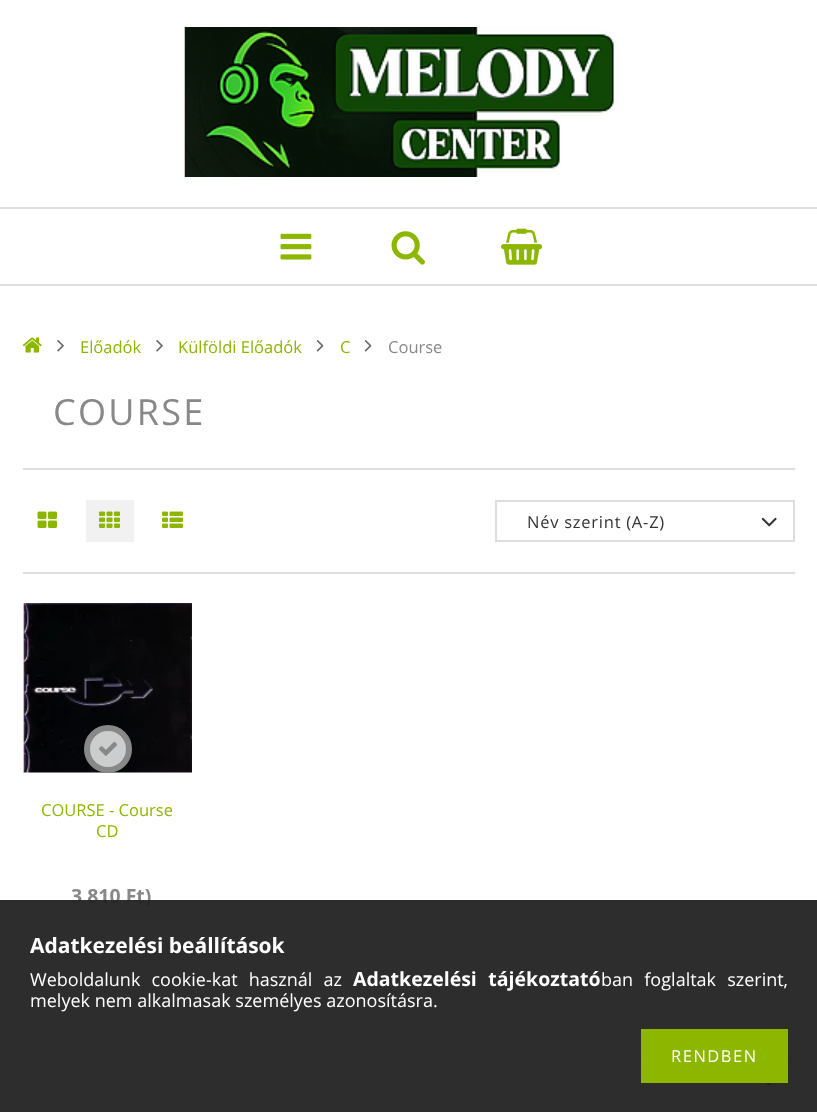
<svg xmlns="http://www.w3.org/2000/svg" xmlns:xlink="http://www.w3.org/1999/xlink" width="817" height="1112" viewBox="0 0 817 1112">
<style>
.cls-1{font:16.5px Open Sans;fill:#8db600}
.cls-2{font:16.5px Open Sans;fill:#888888}
.cls-3{font:36px Open Sans;letter-spacing:2.25px;fill:#888888}
.cls-4{font:16.5px Open Sans;letter-spacing:0.75px;fill:#333333}
.cls-5{font:bold 19.5px Open Sans;fill:#888888}
.cls-6{font:bold 21px Open Sans;fill:#ffffff}
.cls-7{font:18px Open Sans;fill:#ffffff}
.cls-8{font:bold 19.5px Open Sans;fill:#ffffff}
.cls-9{font:16.5px Open Sans;letter-spacing:1.5px;fill:#ffffff}
</style>
<rect width="100%" height="100%" fill="#ffffff"/>
<image xlink:href="image0.png" x="184" y="27" width="434" height="150"/>
<rect fill="#dddddd" x="0" y="207" width="817" height="2"/>
<rect fill="#dddddd" x="0" y="284" width="817" height="2"/>
<image xlink:href="image1.png" x="280" y="233" width="32" height="27"/>
<image xlink:href="image2.png" x="391" y="231" width="34" height="34"/>
<image xlink:href="image3.png" x="501" y="228" width="42" height="37"/>
<image xlink:href="image4.png" x="22" y="337" width="20" height="16"/>
<image xlink:href="image5.png" x="57" y="340" width="7" height="12"/>
<image xlink:href="image5.png" x="156" y="340" width="7" height="12"/>
<image xlink:href="image6.png" x="316" y="340" width="8" height="12"/>
<image xlink:href="image6.png" x="364" y="340" width="8" height="12"/>
<rect fill="#dddddd" x="23" y="468" width="772" height="2"/>
<image xlink:href="image7.png" x="37" y="511" width="20" height="17"/>
<rect fill="#f1f1f1" x="86" y="500" width="48" height="42"/>
<image xlink:href="image8.png" x="99" y="511" width="21" height="17"/>
<image xlink:href="image9.png" x="162" y="511" width="21" height="17"/>
<rect fill="none" stroke="#dddddd" stroke-width="2" x="496" y="501" width="298" height="40"/>
<image xlink:href="image10.png" x="761" y="517" width="16" height="10"/>
<rect fill="#dddddd" x="23" y="572" width="772" height="2"/>
<image xlink:href="image11.png" x="22" y="603" width="170" height="170"/>
<circle fill="#ffffff" fill-opacity="0.8" stroke="#888888" stroke-width="6" cx="108" cy="749" r="21"/>
<image xlink:href="image12.png" x="99" y="742" width="18" height="14"/>
<rect fill="#dddddd" x="23" y="1028" width="772" height="2"/>
<rect fill="none" stroke="#dddddd" stroke-width="2" x="496" y="1060" width="298" height="40"/>
<image xlink:href="image13.png" x="766" y="1083" width="7" height="3"/>
<text class="cls-1" x="80" y="353">Előadók</text>
<text class="cls-1" x="178" y="353">Külföldi Előadók</text>
<text class="cls-1" x="340" y="353">C</text>
<text class="cls-2" x="388" y="353">Course</text>
<text class="cls-3" x="53" y="425">COURSE</text>
<text class="cls-4" x="527" y="528">Név szerint (A-Z)</text>
<text class="cls-1" x="41" y="816">COURSE - Course</text>
<text class="cls-1" x="96" y="837">CD</text>
<text class="cls-5" x="71" y="903">3 810 Ft)</text>
<rect fill="#222222" fill-opacity="0.95" x="0" y="900" width="817" height="212"/>
<text class="cls-6" x="30" y="953">Adatkezelési beállítások</text>
<text class="cls-7" x="30" y="986" word-spacing="6.5">Weboldalunk cookie-kat használ az</text>
<text class="cls-8" x="353" y="986" word-spacing="6.5">Adatkezelési tájékoztató</text>
<text class="cls-7" x="601" y="986" word-spacing="6.5">ban foglaltak szerint,</text>
<text class="cls-7" x="30" y="1007">melyek nem alkalmasak személyes azonosításra.</text>
<rect fill="#8db600" x="641" y="1029" width="147" height="54"/>
<text class="cls-9" x="671" y="1062">RENDBEN</text>
</svg>
